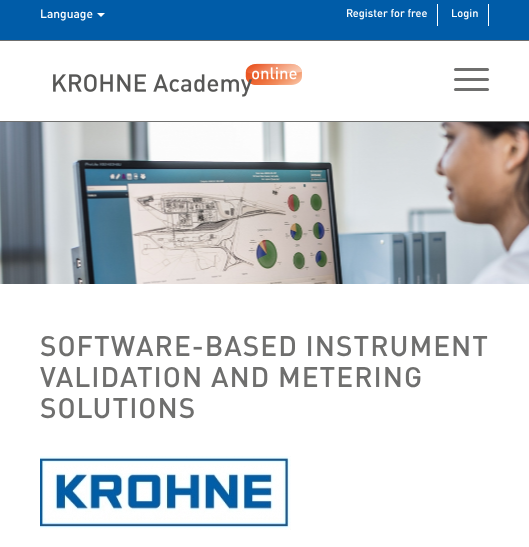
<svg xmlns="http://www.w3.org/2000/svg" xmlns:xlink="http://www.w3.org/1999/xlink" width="529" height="547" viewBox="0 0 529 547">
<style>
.cls-1{font:500 12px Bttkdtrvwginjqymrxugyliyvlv;fill:#ffffff}
.cls-2{font:500 11px Bttkdtrvwginjqymrxugyliyvlv;fill:#ffffff}
.cls-3{font:500 28px Bttkdtrvwginjqymrxugyliyvlv;letter-spacing:1px;fill:#6f6f6e}
</style>
<rect width="100%" height="100%" fill="#ffffff"/>
<rect fill="#005ca8" x="0" y="0" width="529" height="40"/>
<rect fill="#6f6f6e" x="0" y="40" width="529" height="1"/>
<path fill="#ffffff" d="M97 13H105L101 17Z"/>
<rect fill="#ffffff" x="437" y="4" width="1" height="22"/>
<rect fill="#ffffff" x="488" y="4" width="1" height="22"/>
<rect fill="#6f6f6e" x="0" y="121" width="529" height="1"/>
<image xlink:href="image0.png" x="53" y="63" width="249" height="34"/>
<rect fill="#6f6f6e" x="454" y="78" width="35" height="3" rx="1.5"/>
<rect fill="#6f6f6e" x="454" y="68" width="35" height="3" rx="1.5"/>
<rect fill="#6f6f6e" x="454" y="88" width="35" height="3" rx="1.5"/>
<image xlink:href="image1.png" x="0" y="122" width="529" height="162"/>
<image xlink:href="image2.png" x="40" y="456" width="251" height="74"/>
<text class="cls-1" x="40" y="18">Language</text>
<text class="cls-2" x="346" y="17">Register for free</text>
<text class="cls-2" x="451" y="17">Login</text>
<text class="cls-3"><tspan x="40" y="356">SOFTWARE-BASED INSTRUMENT</tspan><tspan x="40" y="387">VALIDATION AND METERING</tspan><tspan x="40" y="418">SOLUTIONS</tspan></text>
</svg>
